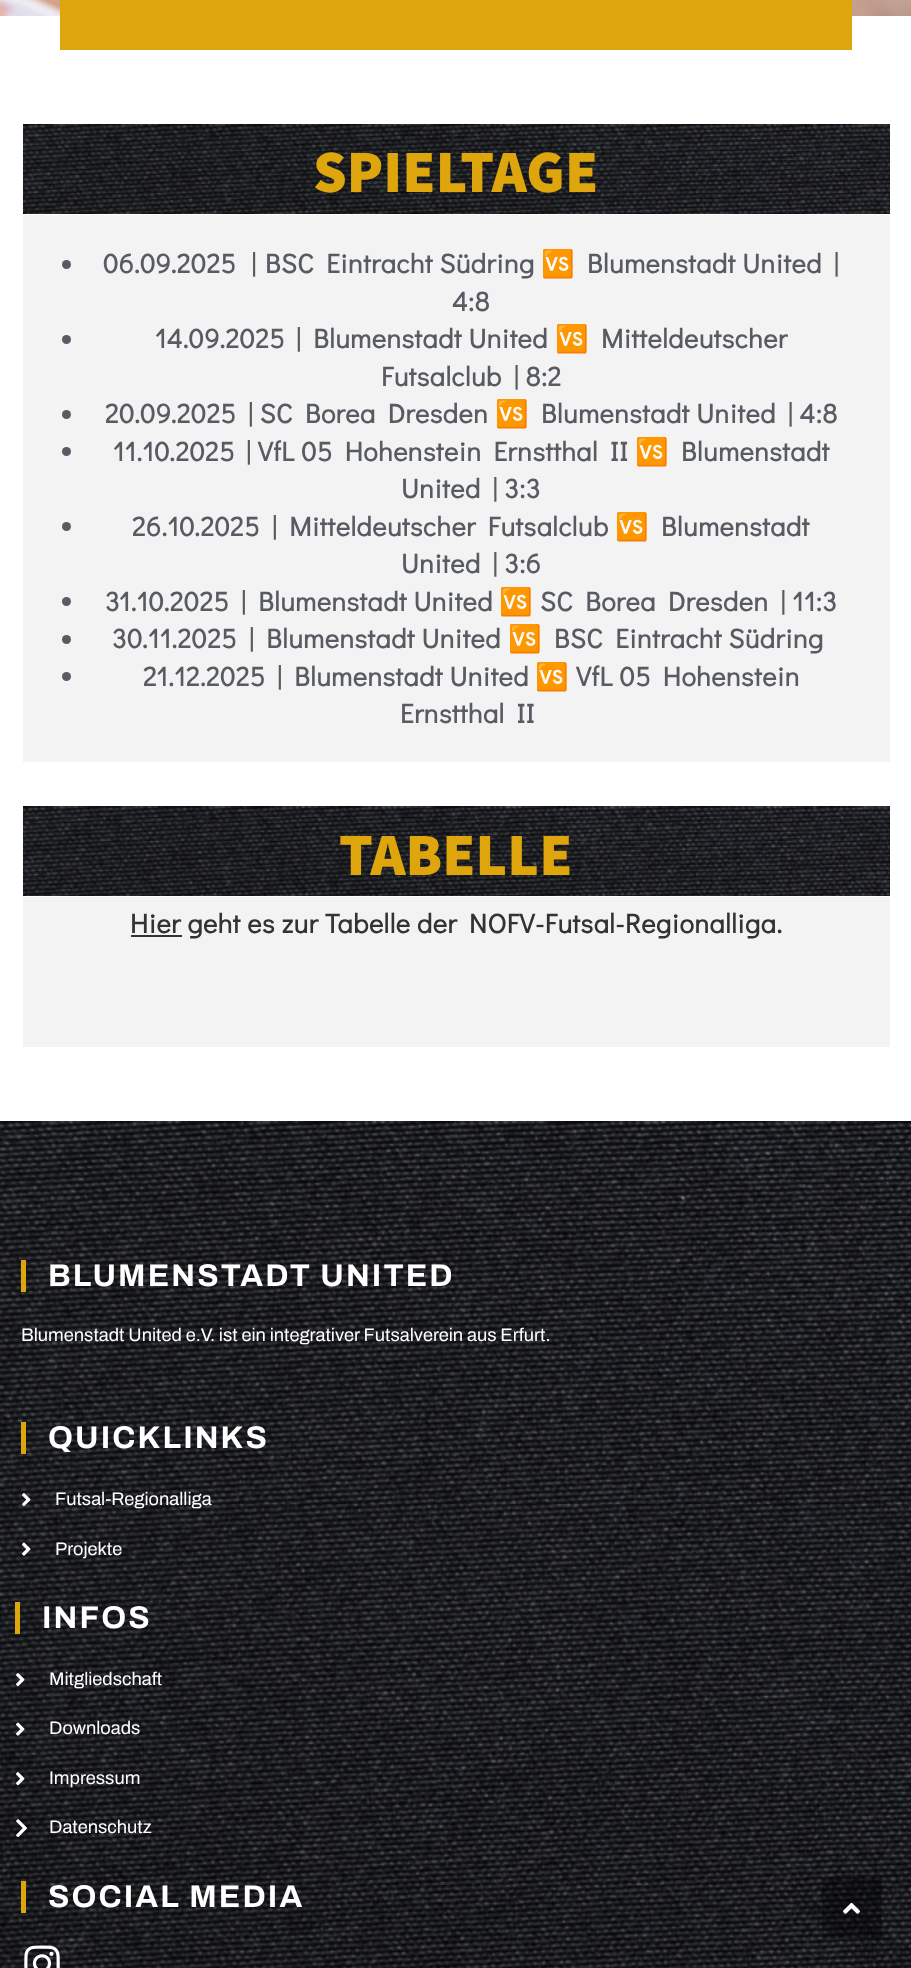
<svg xmlns="http://www.w3.org/2000/svg" xmlns:xlink="http://www.w3.org/1999/xlink" width="911" height="1968" viewBox="0 0 911 1968">
<style>
.cls-1{font:800 60px Assistant;fill:#dfa50c}
.cls-2{font:bold 27px Didact Gothic;letter-spacing:0.55px;fill:#585c62}
.cls-3{font:bold 27px Noto Color Emoji;letter-spacing:0.55px;fill:#585c62}
.cls-4{font:bold 27px Didact Gothic;letter-spacing:0.55px;fill:#333333}
.cls-5{font:bold 31.5px Archivo;letter-spacing:2.1px;fill:#ffffff}
.cls-6{font:18.25px Archivo;fill:#ffffff}
</style>
<rect width="100%" height="100%" fill="#ffffff"/>
<image xlink:href="image0.png" x="0" y="0" width="911" height="16"/>
<rect fill="#dfa50c" x="60" y="0" width="792" height="50"/>
<image xlink:href="image1.png" x="23" y="124" width="867" height="90"/>
<rect fill="#f3f3f4" x="23" y="215" width="867" height="547"/>
<circle fill="#585c62" cx="66.5" cy="264.5" r="4.5"/>
<circle fill="#585c62" cx="66.5" cy="339.5" r="4.5"/>
<circle fill="#585c62" cx="66.5" cy="414.5" r="4.5"/>
<circle fill="#585c62" cx="66.5" cy="451.5" r="4.5"/>
<circle fill="#585c62" cx="66.5" cy="526.5" r="4.5"/>
<circle fill="#585c62" cx="66.5" cy="601.5" r="4.5"/>
<circle fill="#585c62" cx="66.5" cy="639.5" r="4.5"/>
<circle fill="#585c62" cx="66.5" cy="676.5" r="4.5"/>
<image xlink:href="image2.png" x="23" y="806" width="867" height="90"/>
<rect fill="#f3f3f4" x="23" y="897" width="867" height="150"/>
<rect fill="#333333" x="131" y="935" width="51" height="2"/>
<image xlink:href="image3.png" x="0" y="1121" width="911" height="847"/>
<rect fill="#dfa50c" x="21" y="1260" width="5" height="32"/>
<rect fill="#dfa50c" x="21" y="1422" width="5" height="32"/>
<image xlink:href="image4.png" x="22" y="1493" width="9" height="14"/>
<image xlink:href="image5.png" x="22" y="1542" width="9" height="14"/>
<rect fill="#dfa50c" x="15" y="1602" width="5" height="32"/>
<image xlink:href="image6.png" x="16" y="1673" width="9" height="14"/>
<image xlink:href="image7.png" x="16" y="1722" width="9" height="14"/>
<image xlink:href="image8.png" x="16" y="1772" width="9" height="14"/>
<image xlink:href="image9.png" x="16" y="1819" width="11" height="18"/>
<rect fill="#dfa50c" x="21" y="1881" width="5" height="32"/>
<image xlink:href="image10.png" x="24" y="1945" width="36" height="23"/>
<rect fill="#000000" fill-opacity="0.4" x="822" y="1878" width="60" height="60" rx="3"/>
<image xlink:href="image11.png" x="843" y="1903" width="17" height="11"/>
<text class="cls-1" x="313" y="192">SPIELTAGE</text>
<text class="cls-2" x="103" y="273" word-spacing="3">06.09.2025 |</text>
<text class="cls-2" x="265" y="273">BSC Eintracht Südring</text>
<text class="cls-3" x="541" y="273">🆚</text>
<text class="cls-2" x="587" y="273">Blumenstadt United |</text>
<text class="cls-2" x="452" y="311">4:8</text>
<text class="cls-2" x="155" y="348">14.09.2025</text>
<text class="cls-2" x="296" y="348">| Blumenstadt United</text>
<text class="cls-3" x="555" y="348">🆚</text>
<text class="cls-2" x="601" y="348">Mitteldeutscher</text>
<text class="cls-2" x="381" y="386">Futsalclub | 8:2</text>
<text class="cls-2" x="105" y="423">20.09.2025</text>
<text class="cls-2" x="248" y="423">| SC Borea Dresden</text>
<text class="cls-3" x="495" y="423">🆚</text>
<text class="cls-2" x="541" y="423">Blumenstadt United | 4:8</text>
<text class="cls-2" x="113" y="461">11.10.2025</text>
<text class="cls-2" x="246" y="461">| VfL 05 Hohenstein Ernstthal II</text>
<text class="cls-3" x="635" y="461">🆚</text>
<text class="cls-2" x="681" y="461">Blumenstadt</text>
<text class="cls-2" x="401" y="498">United | 3:3</text>
<text class="cls-2" x="132" y="536">26.10.2025</text>
<text class="cls-2" x="272" y="536">| Mitteldeutscher Futsalclub</text>
<text class="cls-3" x="615" y="536">🆚</text>
<text class="cls-2" x="661" y="536">Blumenstadt</text>
<text class="cls-2" x="401" y="573">United | 3:6</text>
<text class="cls-2" x="105" y="611">31.10.2025</text>
<text class="cls-2" x="241" y="611">| Blumenstadt United</text>
<text class="cls-3" x="499" y="611">🆚</text>
<text class="cls-2" x="540" y="611">SC Borea Dresden | 11:3</text>
<text class="cls-2" x="112" y="648">30.11.2025</text>
<text class="cls-2" x="249" y="648">| Blumenstadt United</text>
<text class="cls-3" x="508" y="648">🆚</text>
<text class="cls-2" x="554" y="648">BSC Eintracht Südring</text>
<text class="cls-2" x="143" y="686">21.12.2025</text>
<text class="cls-2" x="277" y="686">| Blumenstadt United</text>
<text class="cls-3" x="535" y="686">🆚</text>
<text class="cls-2" x="576" y="686">VfL 05 Hohenstein</text>
<text class="cls-2" x="400" y="723">Ernstthal II</text>
<text class="cls-1" x="339" y="875">TABELLE</text>
<text class="cls-4" x="130" y="933">Hier geht es zur Tabelle der NOFV-Futsal-Regionalliga.</text>
<text class="cls-5" x="48" y="1286">BLUMENSTADT UNITED</text>
<text class="cls-6" x="21" y="1341">Blumenstadt United e.V. ist ein integrativer Futsalverein aus Erfurt.</text>
<text class="cls-5" x="48" y="1448">QUICKLINKS</text>
<text class="cls-6" x="55" y="1505">Futsal-Regionalliga</text>
<text class="cls-6" x="55" y="1555">Projekte</text>
<text class="cls-5" x="42" y="1628">INFOS</text>
<text class="cls-6" x="49" y="1685">Mitgliedschaft</text>
<text class="cls-6" x="49" y="1734">Downloads</text>
<text class="cls-6" x="49" y="1784">Impressum</text>
<text class="cls-6" x="49" y="1833">Datenschutz</text>
<text class="cls-5" x="48" y="1907">SOCIAL MEDIA</text>
</svg>
